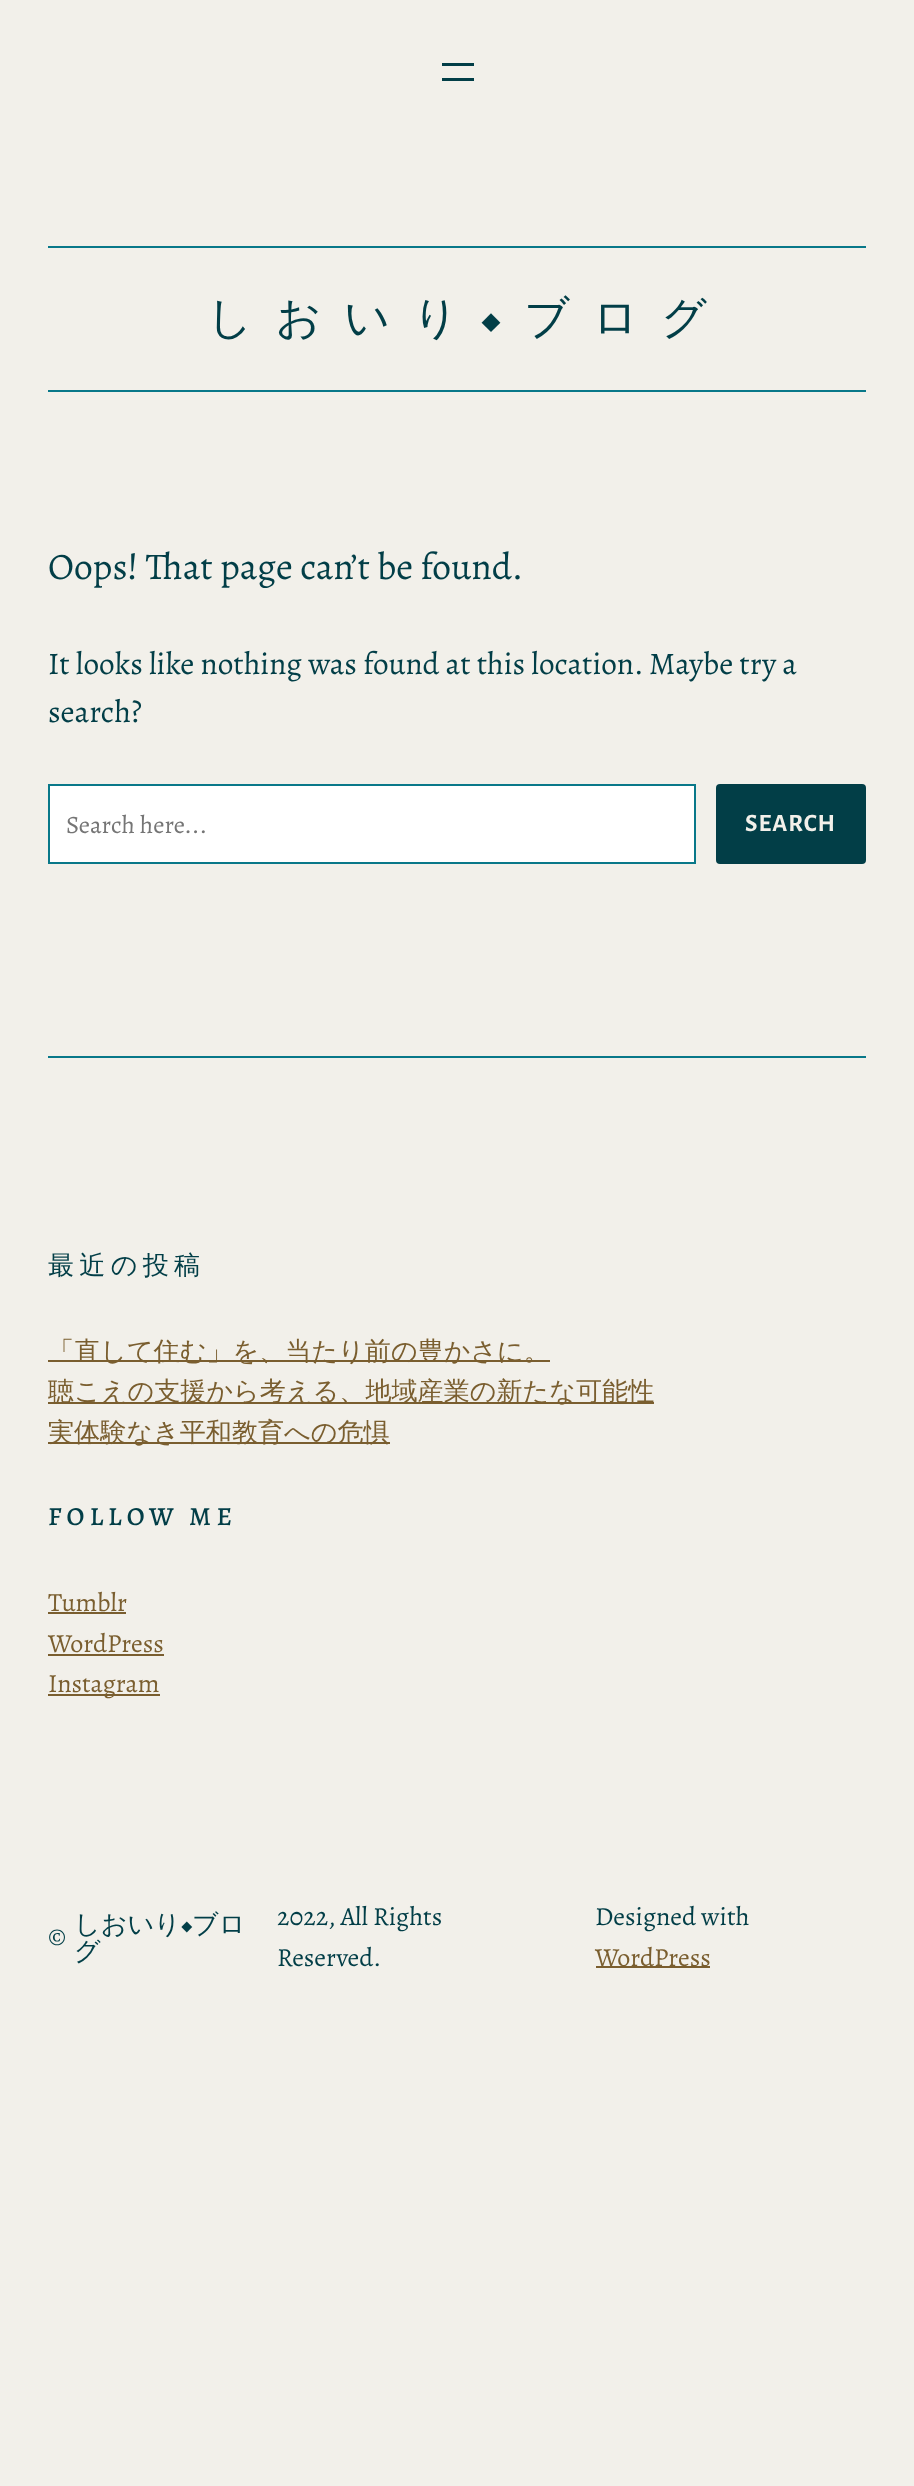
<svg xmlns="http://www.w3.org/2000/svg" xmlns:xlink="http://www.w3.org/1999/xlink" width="914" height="2486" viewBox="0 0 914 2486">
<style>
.cls-1{font:500 45px WenQuanYi Zen Hei;letter-spacing:22.5px;fill:#023e47}
.cls-2{font:45px Alegreya;letter-spacing:22.5px;fill:#023e47}
.cls-3{font:37.5px Alegreya;fill:#023e47}
.cls-4{font:31.3px Alegreya;fill:#023e47}
.cls-5{font:25px Alegreya;fill:#757575}
.cls-6{font:bold 25px Alegreya Sans;letter-spacing:1px;fill:#f2f0ea}
.cls-7{font:500 26.1px WenQuanYi Zen Hei;letter-spacing:5.25px;fill:#023e47}
.cls-8{font:500 26.1px WenQuanYi Zen Hei;fill:#7a5e2f}
.cls-9{font:500 26.1px Alegreya;letter-spacing:5.25px;fill:#023e47}
.cls-10{font:26.1px Alegreya;fill:#7a5e2f}
.cls-11{font:26.1px Alegreya;fill:#023e47}
.cls-12{font:500 26.1px WenQuanYi Zen Hei;fill:#023e47}
</style>
<rect width="100%" height="100%" fill="#f2f0ea"/>
<rect fill="#023e47" x="442" y="63" width="32" height="3"/>
<rect fill="#023e47" x="442" y="78" width="32" height="3"/>
<rect fill="#097889" x="48" y="246" width="818" height="2"/>
<rect fill="#097889" x="48" y="390" width="818" height="2"/>
<rect fill="#ffffff" stroke="#097889" stroke-width="2" x="49" y="785" width="646" height="78"/>
<rect fill="#023e47" x="716" y="784" width="150" height="80" rx="4"/>
<rect fill="#097889" x="48" y="1056" width="818" height="2"/>
<rect fill="#7a5e2f" x="48" y="1360" width="502" height="2"/>
<rect fill="#7a5e2f" x="48" y="1402" width="606" height="2"/>
<rect fill="#7a5e2f" x="48" y="1442" width="342" height="2"/>
<rect fill="#7a5e2f" x="48" y="1612" width="78" height="2"/>
<rect fill="#7a5e2f" x="48" y="1654" width="116" height="2"/>
<rect fill="#7a5e2f" x="48" y="1694" width="112" height="2"/>
<rect fill="#7a5e2f" x="596" y="1966" width="114" height="2"/>
<text class="cls-1" x="207" y="333">しおいり</text>
<text class="cls-2" x="481" y="333">◆</text>
<text class="cls-1" x="524" y="333">ブログ</text>
<text class="cls-3" x="48" y="579">Oops! That page can’t be found.</text>
<text class="cls-4"><tspan x="48" y="674">It looks like nothing was found at this location. Maybe try a</tspan><tspan x="48" y="722">search?</tspan></text>
<text class="cls-5" x="66" y="833">Search here...</text>
<text class="cls-6" x="745" y="831">SEARCH</text>
<text class="cls-7" x="48" y="1274">最近の投稿</text>
<text class="cls-8"><tspan x="48" y="1360">「直して住む」を、当たり前の豊かさに。</tspan><tspan x="48" y="1400">聴こえの支援から考える、地域産業の新たな可能性</tspan><tspan x="48" y="1441">実体験なき平和教育への危惧</tspan></text>
<text class="cls-9" x="48" y="1525">FOLLOW ME</text>
<text class="cls-10"><tspan x="48" y="1611">Tumblr</tspan><tspan x="48" y="1652">WordPress</tspan><tspan x="48" y="1692">Instagram</tspan></text>
<text class="cls-11" x="48" y="1945">©</text>
<text class="cls-12" x="74" y="1933">しおいり</text>
<text class="cls-11" x="181" y="1933">◆</text>
<text class="cls-12" x="192" y="1933">ブロ</text>
<text class="cls-12" x="74" y="1960">グ</text>
<text class="cls-11"><tspan x="277" y="1925">2022, All Rights</tspan><tspan x="277" y="1966">Reserved.</tspan></text>
<text class="cls-11" x="595" y="1925">Designed with</text>
<text class="cls-10" x="595" y="1966">WordPress</text>
</svg>
